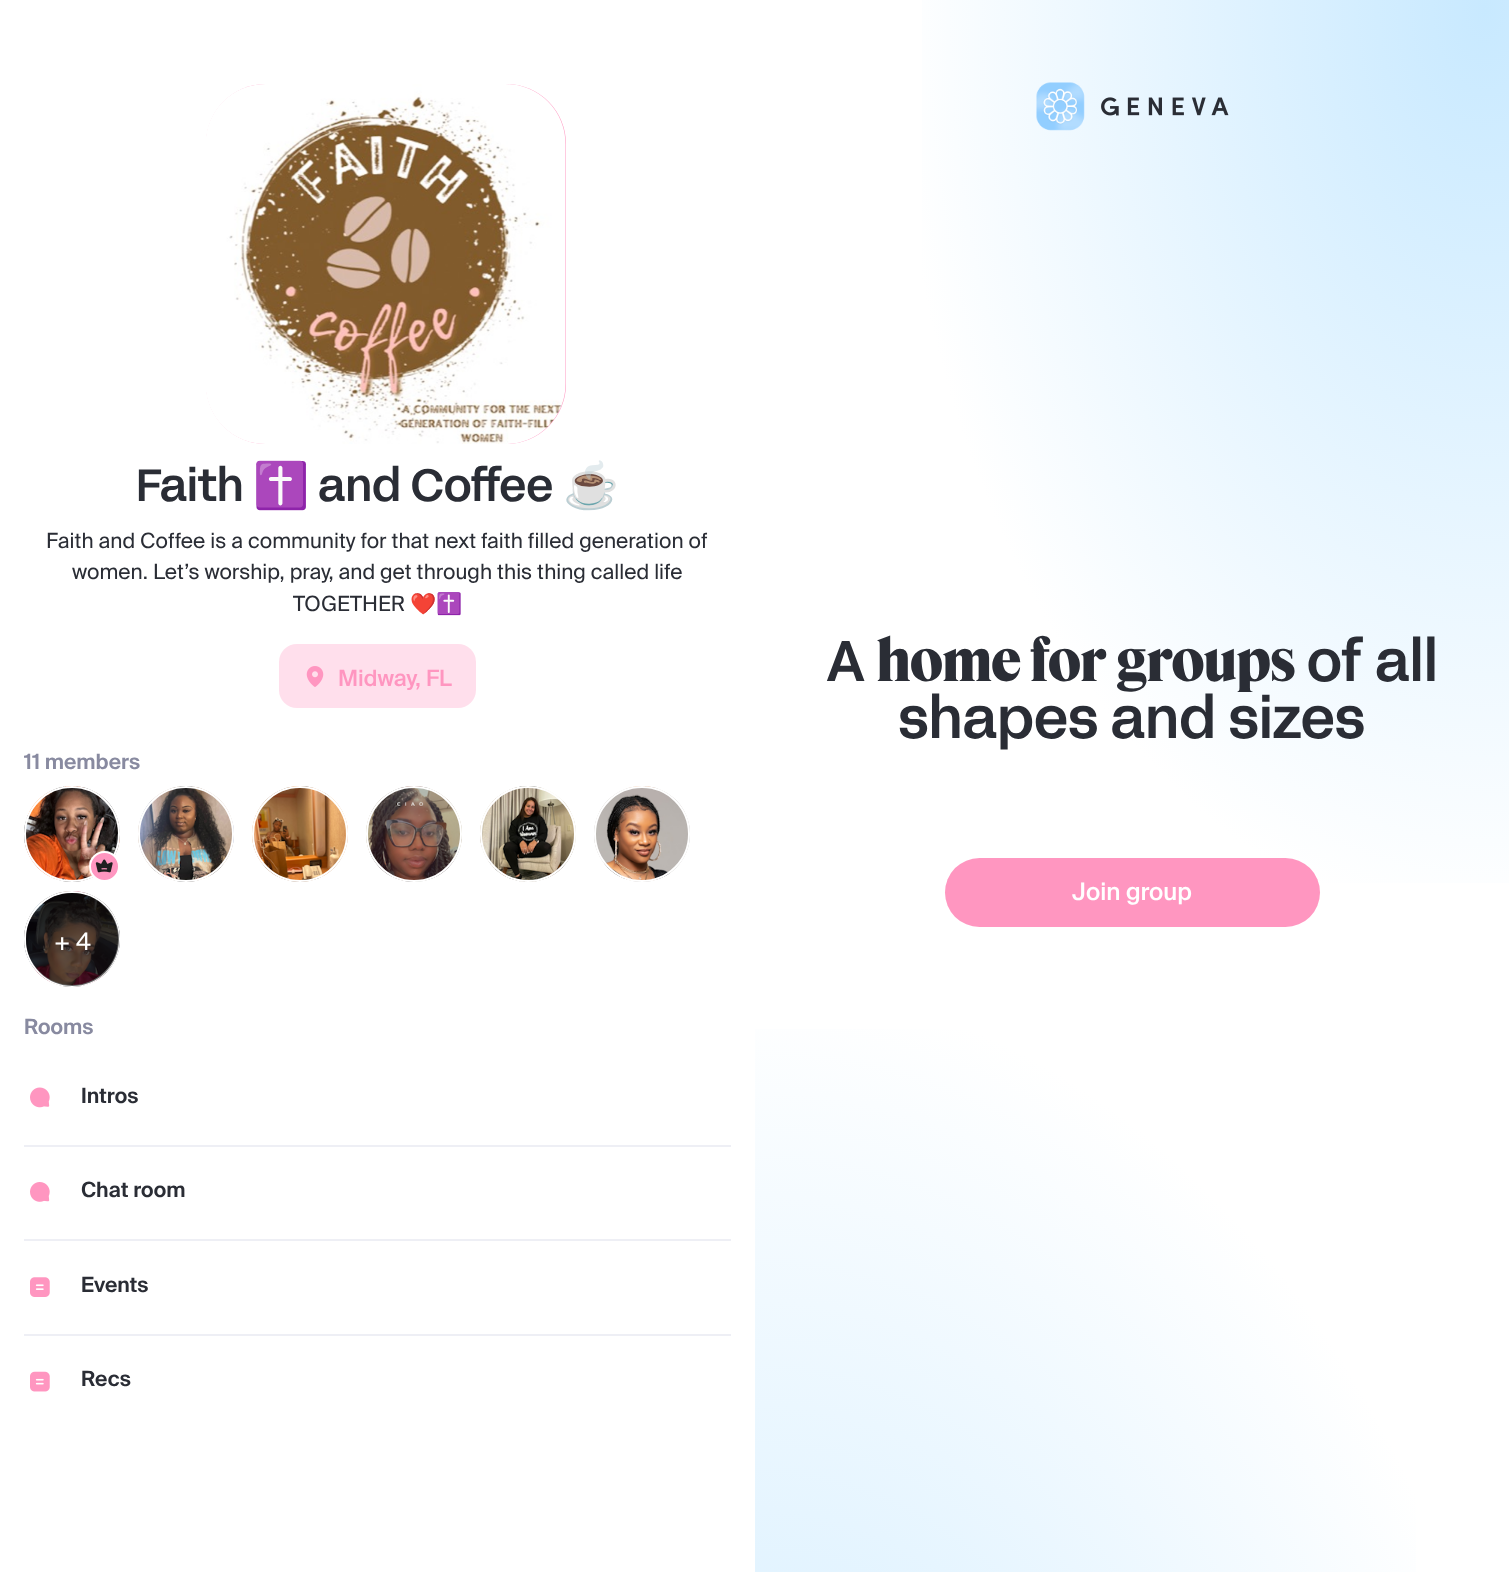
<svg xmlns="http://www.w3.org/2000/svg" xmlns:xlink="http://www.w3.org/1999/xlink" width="1509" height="1572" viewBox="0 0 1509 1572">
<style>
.cls-1{font:500 45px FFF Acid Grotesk;fill:#2a2d35}
.cls-2{font:45px Noto Color Emoji;fill:#2a2d35}
.cls-3{font:21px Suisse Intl;fill:#2a2d35}
.cls-4{font:21px Noto Color Emoji;fill:#2a2d35}
.cls-5{font:500 22.5px Suisse Intl;fill:#ff96c0}
.cls-6{font:600 21px Suisse Intl;fill:#888aa0}
.cls-7{font:24px Suisse Intl;fill:#ffffff}
.cls-8{font:600 21px Suisse Intl;fill:#2a2d35}
.cls-9{font:500 57px FFF Acid Grotesk;fill:#2a2d35}
.cls-10{font:800 57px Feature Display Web;fill:#2a2d35}
.cls-11{font:500 24px Suisse Intl;fill:#ffffff}
</style>
<defs>
<radialGradient id="g1" gradientUnits="userSpaceOnUse" cx="0" cy="0" r="1" gradientTransform="matrix(590 0 0 916 1485 9)"><stop offset="0" stop-color="#c8e9ff"/><stop offset="1" stop-color="#ffffff"/></radialGradient>
<radialGradient id="g2" gradientUnits="userSpaceOnUse" cx="0" cy="0" r="1" gradientTransform="matrix(797 0 0 1150 755 2136)"><stop offset="0" stop-color="#c8e9ff"/><stop offset="1" stop-color="#c8e9ff" stop-opacity="0"/></radialGradient>
</defs>
<rect width="100%" height="100%" fill="#ffffff"/>
<rect fill="#ff96c0" x="206" y="84" width="360" height="360" rx="60"/>
<image xlink:href="image0.png" x="206" y="84" width="360" height="360"/>
<rect fill="#ffdfec" x="279" y="644" width="197" height="64" rx="18"/>
<image xlink:href="image1.png" x="306" y="666" width="18" height="21"/>
<image xlink:href="image2.png" x="24" y="786" width="96" height="96"/>
<circle fill="none" stroke="#ffffff" stroke-width="2" cx="72" cy="834" r="47"/>
<circle fill="#ff96c0" stroke="#ffffff" stroke-width="2" cx="104.5" cy="866.5" r="14.5"/>
<image xlink:href="image3.png" x="95" y="859" width="18" height="14"/>
<image xlink:href="image4.png" x="138" y="786" width="96" height="96"/>
<circle fill="none" stroke="#ffffff" stroke-width="2" cx="186" cy="834" r="47"/>
<image xlink:href="image5.png" x="252" y="786" width="96" height="96"/>
<circle fill="none" stroke="#ffffff" stroke-width="2" cx="300" cy="834" r="47"/>
<image xlink:href="image6.png" x="366" y="786" width="96" height="96"/>
<circle fill="none" stroke="#ffffff" stroke-width="2" cx="414" cy="834" r="47"/>
<image xlink:href="image7.png" x="480" y="786" width="96" height="96"/>
<circle fill="none" stroke="#ffffff" stroke-width="2" cx="528" cy="834" r="47"/>
<image xlink:href="image8.png" x="594" y="786" width="96" height="96"/>
<circle fill="none" stroke="#ffffff" stroke-width="2" cx="642" cy="834" r="47"/>
<image xlink:href="image9.png" x="24" y="891" width="96" height="96"/>
<circle fill="none" stroke="#ffffff" stroke-width="2" cx="72" cy="939" r="47"/>
<circle fill="#000000" fill-opacity="0.6" cx="72.5" cy="939.5" r="46.5"/>
<rect fill="#eeeff5" x="24" y="1145" width="707" height="2"/>
<image xlink:href="image10.png" x="30" y="1087" width="20" height="21"/>
<rect fill="#eeeff5" x="24" y="1239" width="707" height="2"/>
<image xlink:href="image11.png" x="30" y="1182" width="20" height="20"/>
<rect fill="#eeeff5" x="24" y="1334" width="707" height="2"/>
<image xlink:href="image12.png" x="30" y="1277" width="20" height="20"/>
<image xlink:href="image13.png" x="30" y="1371" width="20" height="21"/>
<rect fill="url(#g1)" x="922" y="0" width="587" height="883"/>
<image xlink:href="image14.png" x="1036" y="82" width="49" height="49"/>
<image xlink:href="image15.png" x="1101" y="97" width="128" height="19"/>
<rect fill="#ff96c0" x="945" y="858" width="375" height="69" rx="34.5"/>
<rect fill="url(#g2)" x="755" y="1029" width="661" height="543"/>
<text class="cls-1" x="136" y="501">Faith</text>
<text class="cls-2" x="253" y="501">✝️</text>
<text class="cls-1" x="318" y="501">and Coffee</text>
<text class="cls-2" x="563" y="501">☕️</text>
<text class="cls-3" x="46" y="548">Faith and Coffee is a community for that next faith filled generation of</text>
<text class="cls-3" x="72" y="579">women. Let’s worship, pray, and get through this thing called life</text>
<text class="cls-3" x="293" y="611">TOGETHER</text>
<text class="cls-4" x="410" y="611">❤️✝️</text>
<text class="cls-5" x="338" y="686">Midway, FL</text>
<text class="cls-6" x="24" y="769">11 members</text>
<text class="cls-7" x="54" y="950">+ 4</text>
<text class="cls-6" x="24" y="1034">Rooms</text>
<text class="cls-8" x="81" y="1103">Intros</text>
<text class="cls-8" x="81" y="1197">Chat room</text>
<text class="cls-8" x="81" y="1292">Events</text>
<text class="cls-8" x="81" y="1386">Recs</text>
<text class="cls-9" x="826" y="681">A</text>
<text class="cls-10" x="877" y="681">home for groups</text>
<text class="cls-9" x="1307" y="681">of all</text>
<text class="cls-9" x="898" y="738">shapes and sizes</text>
<text class="cls-11" x="1072" y="900">Join group</text>
</svg>
